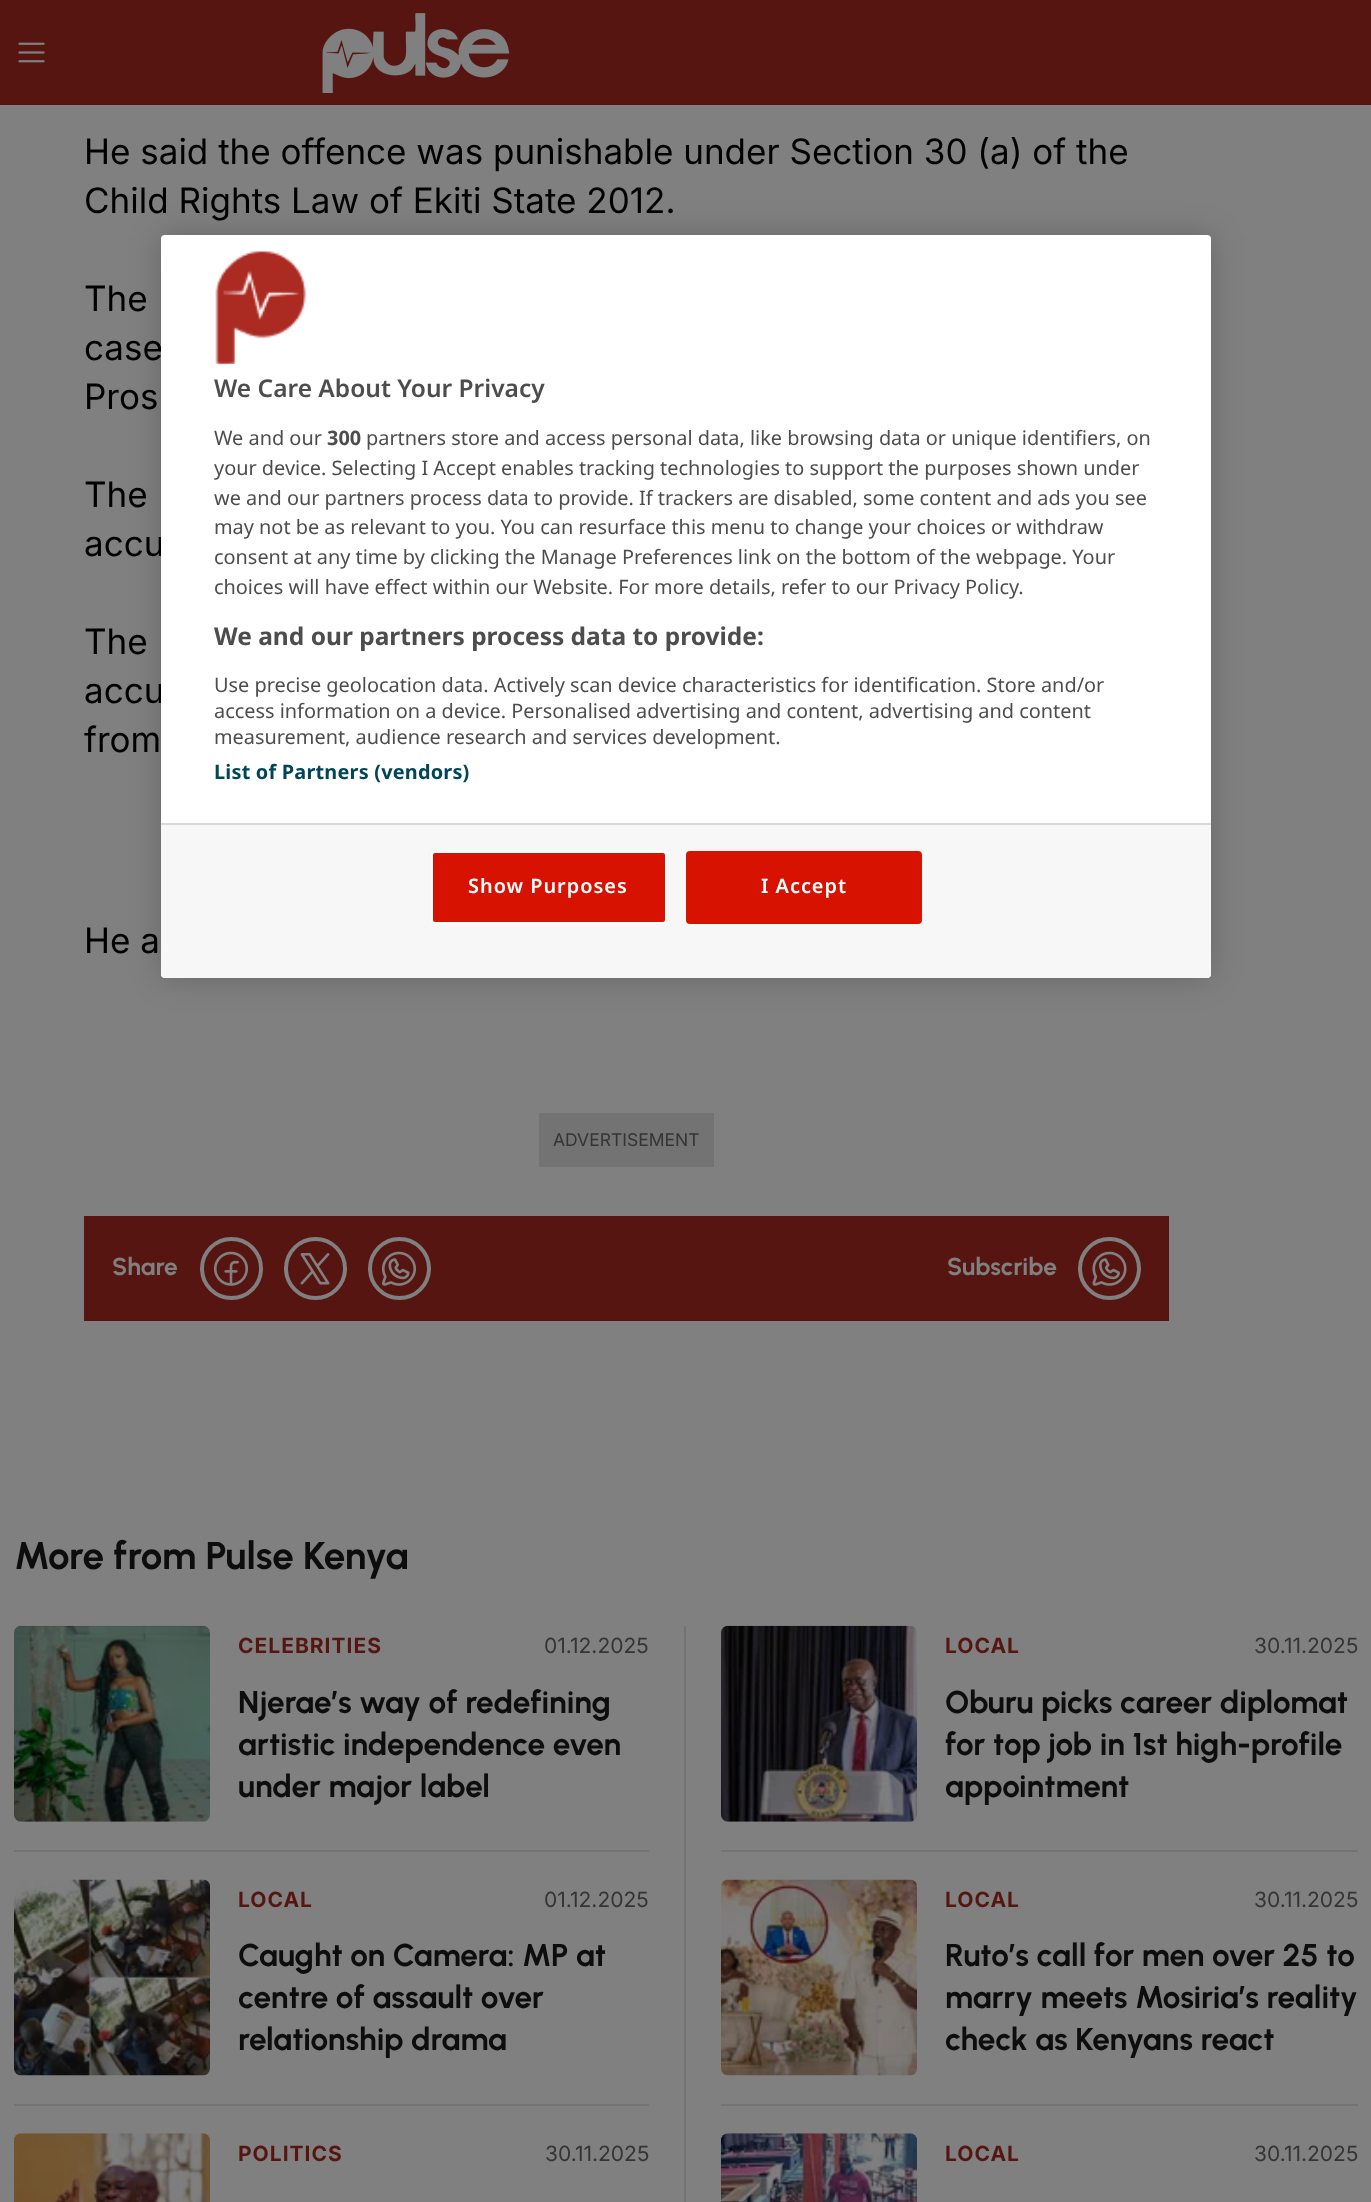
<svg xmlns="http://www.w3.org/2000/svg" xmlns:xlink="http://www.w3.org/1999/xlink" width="1371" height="2202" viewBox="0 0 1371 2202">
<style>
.cls-1{font:35px Inter;fill:#000000}
.cls-2{font:17.5px Inter;fill:#343434}
.cls-3{font:bold 24.5px Urbanist;fill:#808080}
.cls-4{font:bold 38.5px Urbanist;fill:#0d0d0d}
.cls-5{font:bold 21px Inter;letter-spacing:1px;fill:#561511}
.cls-6{font:21px Inter;fill:#343434}
.cls-7{font:bold 31.5px Urbanist;fill:#0d0d0d}
.cls-8{font:600 24.5px Noto Sans;fill:#4d4d4d}
.cls-9{font:19.9px Noto Sans;fill:#4d4d4d}
.cls-10{font:bold 19.9px Noto Sans;fill:#4d4d4d}
.cls-11{font:bold 24.5px Noto Sans;fill:#4d4d4d}
.cls-12{font:bold 19.9px Noto Sans;letter-spacing:0.2px;fill:#004658}
.cls-13{font:600 19.9px Noto Sans;letter-spacing:1px;fill:#ffffff}
</style>
<rect width="100%" height="100%" fill="#808080"/>
<rect fill="#561511" x="0" y="0" width="1371" height="105"/>
<image xlink:href="image0.png" x="18" y="42" width="27" height="21"/>
<image xlink:href="image1.png" x="322" y="13" width="188" height="80"/>
<rect fill="#737373" x="539" y="1113" width="175" height="54"/>
<rect fill="#561511" x="84" y="1216" width="1085" height="105"/>
<circle fill="none" stroke="#808080" stroke-width="4" cx="231.5" cy="1268.5" r="29.5"/>
<image xlink:href="image2.png" x="213" y="1251" width="36" height="35"/>
<circle fill="none" stroke="#808080" stroke-width="4" cx="315.5" cy="1268.5" r="29.5"/>
<image xlink:href="image3.png" x="300" y="1253" width="30" height="32"/>
<circle fill="none" stroke="#808080" stroke-width="4" cx="399.5" cy="1268.5" r="29.5"/>
<image xlink:href="image4.png" x="381" y="1251" width="35" height="35"/>
<circle fill="none" stroke="#808080" stroke-width="4" cx="1109.5" cy="1268.5" r="29.5"/>
<image xlink:href="image5.png" x="1092" y="1251" width="35" height="35"/>
<rect fill="#737373" x="684" y="1626" width="2" height="576"/>
<rect fill="#737373" x="14" y="1850" width="635" height="2"/>
<image xlink:href="image6.png" x="14" y="1625" width="196" height="197"/>
<rect fill="#737373" x="721" y="1850" width="637" height="2"/>
<image xlink:href="image7.png" x="721" y="1625" width="196" height="197"/>
<rect fill="#737373" x="14" y="2104" width="635" height="2"/>
<image xlink:href="image8.png" x="14" y="1879" width="196" height="197"/>
<rect fill="#737373" x="721" y="2104" width="637" height="2"/>
<image xlink:href="image9.png" x="721" y="1879" width="196" height="197"/>
<image xlink:href="image10.png" x="14" y="2133" width="196" height="69"/>
<image xlink:href="image11.png" x="721" y="2133" width="196" height="69"/>
<rect fill="#000000" fill-opacity="0.2" filter="blur(16px)" x="161" y="235" width="1050" height="743" rx="4"/>
<text class="cls-1"><tspan x="84" y="164">He said the offence was punishable under Section 30 (a) of the</tspan><tspan x="84" y="213">Child Rights Law of Ekiti State 2012.</tspan></text>
<text class="cls-1"><tspan x="84" y="311">The</tspan><tspan x="84" y="360">case</tspan><tspan x="84" y="409">Pros</tspan></text>
<text class="cls-1"><tspan x="84" y="507">The</tspan><tspan x="84" y="556">accu</tspan></text>
<text class="cls-1"><tspan x="84" y="654">The</tspan><tspan x="84" y="703">accu</tspan><tspan x="84" y="752">from</tspan></text>
<text class="cls-1" x="84" y="953">He a</text>
<text class="cls-2" x="553" y="1146">ADVERTISEMENT</text>
<text class="cls-3" x="112" y="1275">Share</text>
<text class="cls-3" x="947" y="1275">Subscribe</text>
<text class="cls-4" x="14" y="1569">More from Pulse Kenya</text>
<text class="cls-5" x="238" y="1653">CELEBRITIES</text>
<text class="cls-6" x="544" y="1653">01.12.2025</text>
<text class="cls-7"><tspan x="238" y="1713">Njerae’s way of redefining</tspan><tspan x="238" y="1755">artistic independence even</tspan><tspan x="238" y="1797">under major label</tspan></text>
<text class="cls-5" x="945" y="1653">LOCAL</text>
<text class="cls-6" x="1254" y="1653">30.11.2025</text>
<text class="cls-7"><tspan x="945" y="1713">Oburu picks career diplomat</tspan><tspan x="945" y="1755">for top job in 1st high-profile</tspan><tspan x="945" y="1797">appointment</tspan></text>
<text class="cls-5" x="238" y="1907">LOCAL</text>
<text class="cls-6" x="544" y="1907">01.12.2025</text>
<text class="cls-7"><tspan x="238" y="1966">Caught on Camera: MP at</tspan><tspan x="238" y="2008">centre of assault over</tspan><tspan x="238" y="2050">relationship drama</tspan></text>
<text class="cls-5" x="945" y="1907">LOCAL</text>
<text class="cls-6" x="1254" y="1907">30.11.2025</text>
<text class="cls-7"><tspan x="945" y="1966">Ruto’s call for men over 25 to</tspan><tspan x="945" y="2008">marry meets Mosiria’s reality</tspan><tspan x="945" y="2050">check as Kenyans react</tspan></text>
<text class="cls-5" x="238" y="2161">POLITICS</text>
<text class="cls-6" x="545" y="2161">30.11.2025</text>
<text class="cls-5" x="945" y="2161">LOCAL</text>
<text class="cls-6" x="1254" y="2161">30.11.2025</text>
<rect fill="#ffffff" x="161" y="235" width="1050" height="743" rx="4"/>
<image xlink:href="image12.png" x="215" y="250" width="91" height="114"/>
<text class="cls-8" x="214" y="397">We Care About Your Privacy</text>
<text class="cls-9" x="214" y="445">We and our</text>
<text class="cls-10" x="327" y="445">300</text>
<text class="cls-9" x="366" y="445">partners store and access personal data, like browsing data or unique identifiers, on</text>
<text class="cls-9"><tspan x="214" y="475">your device. Selecting I Accept enables tracking technologies to support the purposes shown under</tspan><tspan x="214" y="505">we and our partners process data to provide. If trackers are disabled, some content and ads you see</tspan><tspan x="214" y="534">may not be as relevant to you. You can resurface this menu to change your choices or withdraw</tspan><tspan x="214" y="564">consent at any time by clicking the Manage Preferences link on the bottom of the webpage. Your</tspan><tspan x="214" y="594">choices will have effect within our Website. For more details, refer to our Privacy Policy.</tspan></text>
<text class="cls-11" x="214" y="645">We and our partners process data to provide:</text>
<text class="cls-9"><tspan x="214" y="692">Use precise geolocation data. Actively scan device characteristics for identification. Store and/or</tspan><tspan x="214" y="718">access information on a device. Personalised advertising and content, advertising and content</tspan><tspan x="214" y="744">measurement, audience research and services development.</tspan></text>
<text class="cls-12" x="214" y="779">List of Partners (vendors)</text>
<path fill="#f7f7f7" d="M161 823H1211V974C1211 976 1209 978 1207 978H165C163 978 161 976 161 974Z"/>
<rect fill="#d8d8d8" x="161" y="823" width="1050" height="2"/>
<rect fill="#d81200" stroke="#ffffff" stroke-width="2" x="432" y="852" width="234" height="71" rx="3"/>
<text class="cls-13" x="468" y="893">Show Purposes</text>
<rect fill="#d81200" stroke="#d81200" stroke-width="2" x="687" y="852" width="234" height="71" rx="3"/>
<text class="cls-13" x="761" y="893">I Accept</text>
</svg>
